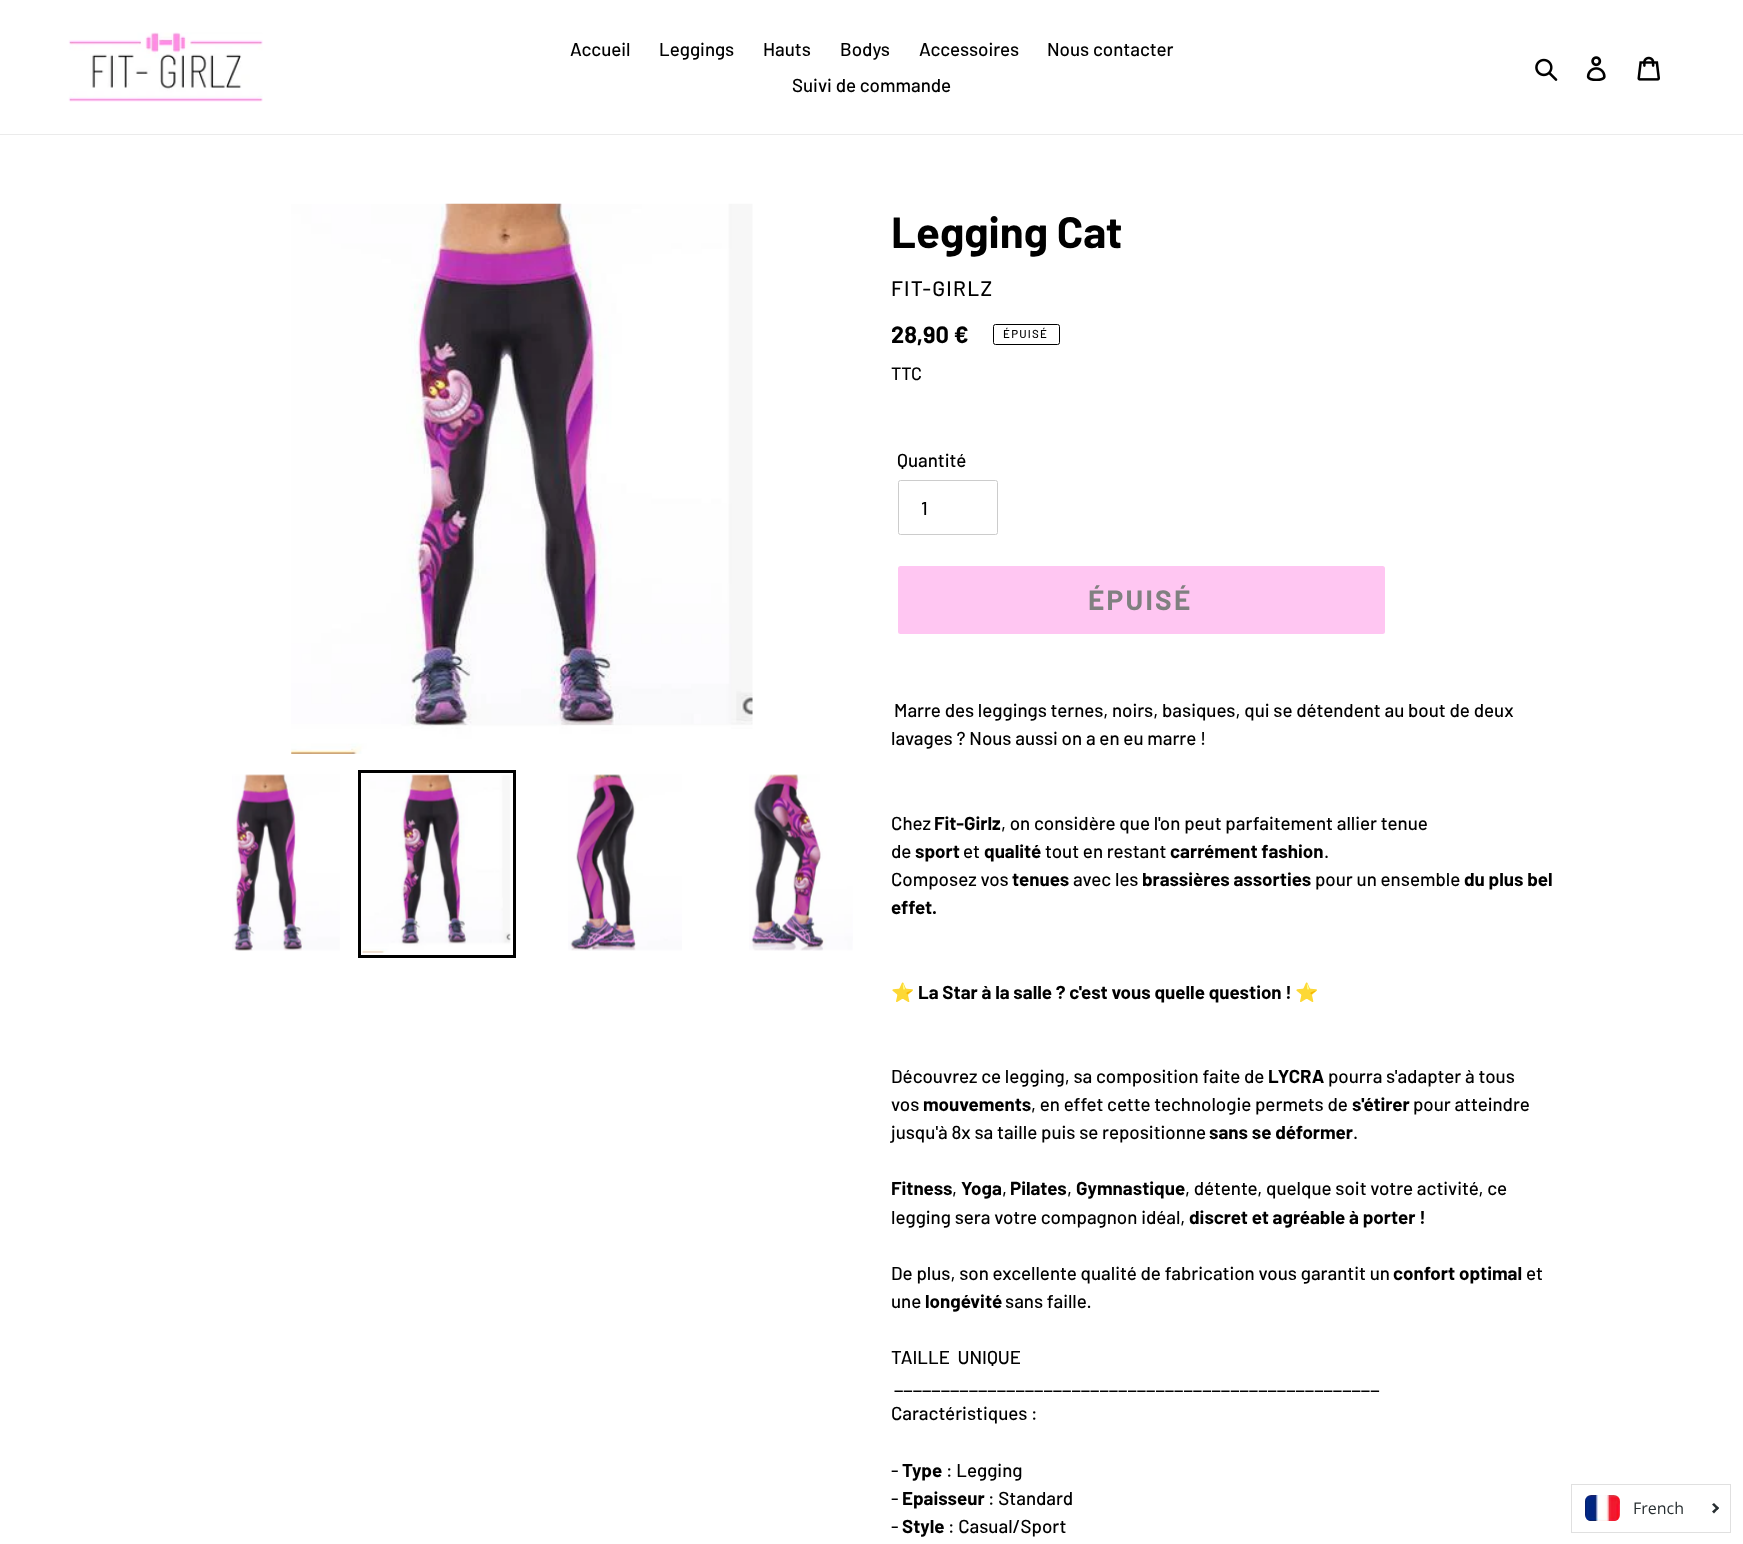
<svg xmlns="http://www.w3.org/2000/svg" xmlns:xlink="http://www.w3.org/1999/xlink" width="1743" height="1544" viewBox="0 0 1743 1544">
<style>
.cls-1{font:500 18.75px Barlow;fill:#000000}
.cls-2{font:bold 43.75px Barlow;fill:#000000}
.cls-3{font:500 21px Barlow;letter-spacing:1.25px;fill:#000000}
.cls-4{font:bold 23.5px Barlow;fill:#000000}
.cls-5{font:500 11.5px Barlow;letter-spacing:1.25px;fill:#000000}
.cls-6{font:500 18px Barlow;fill:#000000}
.cls-7{font:bold 28px Barlow;letter-spacing:2.25px;fill:#808080}
.cls-8{font:bold 18.75px Barlow;fill:#000000}
.cls-9{font:bold 18.75px Noto Color Emoji;fill:#000000}
.cls-10{font:16px Open Sans;fill:#272e31}
</style>
<rect width="100%" height="100%" fill="#ffffff"/>
<rect fill="#ebebeb" x="0" y="134" width="1743" height="1"/>
<image xlink:href="image0.png" x="68" y="32" width="195" height="70"/>
<image xlink:href="image1.png" x="1535" y="58" width="23" height="23"/>
<image xlink:href="image2.png" x="1586" y="56" width="20" height="25"/>
<image xlink:href="image3.png" x="1637" y="56" width="23" height="25"/>
<image xlink:href="image4.png" x="291" y="203" width="462" height="551"/>
<image xlink:href="image5.png" x="232" y="774" width="108" height="177"/>
<rect fill="none" stroke="#000000" stroke-width="3" x="359.5" y="771.5" width="155" height="185"/>
<image xlink:href="image6.png" x="362" y="774" width="149" height="179"/>
<image xlink:href="image7.png" x="568" y="774" width="114" height="177"/>
<image xlink:href="image8.png" x="749" y="774" width="104" height="177"/>
<rect fill="none" stroke="#000000" x="993.5" y="324.5" width="66" height="20" rx="2"/>
<rect fill="none" stroke="#cccccc" x="898.5" y="480.5" width="99" height="54" rx="2"/>
<rect fill="#ffc6f2" x="898" y="566" width="487" height="68" rx="2.5"/>
<rect fill="none" stroke="#e0e0e0" x="1571.5" y="1484.5" width="159" height="48"/>
<image xlink:href="image9.png" x="1585" y="1495" width="35" height="26"/>
<path fill="#272e31" d="M1714 1503L1719 1508L1717.5 1510L1712 1504.5Z"/>
<path fill="#272e31" d="M1717.5 1506.5L1719 1508L1714 1513.5L1712 1511.5Z"/>
<text class="cls-1" x="570" y="56">Accueil</text>
<text class="cls-1" x="659" y="56">Leggings</text>
<text class="cls-1" x="763" y="56">Hauts</text>
<text class="cls-1" x="840" y="56">Bodys</text>
<text class="cls-1" x="919" y="56">Accessoires</text>
<text class="cls-1" x="1047" y="56">Nous contacter</text>
<text class="cls-1" x="792" y="92">Suivi de commande</text>
<text class="cls-2" x="891" y="248">Legging Cat</text>
<text class="cls-3" x="891" y="296">FIT-GIRLZ</text>
<text class="cls-4" x="891" y="343">28,90 €</text>
<text class="cls-5" x="1003" y="338">ÉPUISÉ</text>
<text class="cls-6" x="891" y="380">TTC</text>
<text class="cls-1" x="897" y="467">Quantité</text>
<text class="cls-1" x="921" y="515">1</text>
<text class="cls-7" x="1088" y="610">ÉPUISÉ</text>
<text class="cls-1" x="894" y="717">Marre des leggings ternes, noirs, basiques, qui se détendent au bout de deux</text>
<text class="cls-1" x="891" y="745">lavages ? Nous aussi on a en eu marre !</text>
<text class="cls-1" x="891" y="830">Chez</text>
<text class="cls-8" x="934" y="830">Fit-Girlz</text>
<text class="cls-1" x="1001" y="830">, on considère que l'on peut parfaitement allier tenue</text>
<text class="cls-1" x="891" y="858">de</text>
<text class="cls-8" x="915" y="858">sport</text>
<text class="cls-1" x="963" y="858">et</text>
<text class="cls-8" x="984" y="858">qualité</text>
<text class="cls-1" x="1045" y="858">tout en restant</text>
<text class="cls-8" x="1170" y="858">carrément fashion</text>
<text class="cls-1" x="1324" y="858">.</text>
<text class="cls-1" x="891" y="886">Composez vos</text>
<text class="cls-8" x="1012" y="886">tenues</text>
<text class="cls-1" x="1073" y="886">avec les</text>
<text class="cls-8" x="1142" y="886">brassières assorties</text>
<text class="cls-1" x="1315" y="886">pour un ensemble</text>
<text class="cls-8" x="1464" y="886">du plus bel</text>
<text class="cls-8" x="891" y="914">effet.</text>
<text class="cls-9" x="891" y="999">⭐️</text>
<text class="cls-8" x="918" y="999">La Star à la salle ? c'est vous quelle question !</text>
<text class="cls-9" x="1295" y="999">⭐️</text>
<text class="cls-1" x="891" y="1083">Découvrez ce legging, sa composition faite de</text>
<text class="cls-8" x="1268" y="1083">LYCRA</text>
<text class="cls-1" x="1328" y="1083">pourra s'adapter à tous</text>
<text class="cls-1" x="891" y="1111">vos</text>
<text class="cls-8" x="923" y="1111">mouvements</text>
<text class="cls-1" x="1031" y="1111">, en effet cette technologie permets de</text>
<text class="cls-8" x="1352" y="1111">s'étirer</text>
<text class="cls-1" x="1413" y="1111">pour atteindre</text>
<text class="cls-1" x="891" y="1139">jusqu'à 8x sa taille puis se repositionne</text>
<text class="cls-8" x="1209" y="1139">sans se déformer</text>
<text class="cls-1" x="1353" y="1139">.</text>
<text class="cls-8" x="891" y="1195">Fitness</text>
<text class="cls-1" x="952" y="1195">,</text>
<text class="cls-8" x="961" y="1195">Yoga</text>
<text class="cls-1" x="1002" y="1195">,</text>
<text class="cls-8" x="1010" y="1195">Pilates</text>
<text class="cls-1" x="1067" y="1195">,</text>
<text class="cls-8" x="1076" y="1195">Gymnastique</text>
<text class="cls-1" x="1185" y="1195">, détente, quelque soit votre activité, ce</text>
<text class="cls-1" x="891" y="1224">legging sera votre compagnon idéal,</text>
<text class="cls-8" x="1189" y="1224">discret et agréable à porter !</text>
<text class="cls-1" x="891" y="1280">De plus, son excellente qualité de fabrication vous garantit un</text>
<text class="cls-8" x="1393" y="1280">confort optimal</text>
<text class="cls-1" x="1526" y="1280">et</text>
<text class="cls-1" x="891" y="1308">une</text>
<text class="cls-8" x="925" y="1308">longévité</text>
<text class="cls-1" x="1005" y="1308">sans faille.</text>
<text class="cls-1" xml:space="preserve" x="891" y="1364">TAILLE  UNIQUE</text>
<text class="cls-1" x="894" y="1392">____________________________________________________</text>
<text class="cls-1" x="891" y="1420">Caractéristiques :</text>
<text class="cls-1" x="891" y="1477">-</text>
<text class="cls-8" x="902" y="1477">Type</text>
<text class="cls-1" x="946" y="1477">: Legging</text>
<text class="cls-1" x="891" y="1505">-</text>
<text class="cls-8" x="902" y="1505">Epaisseur</text>
<text class="cls-1" x="988" y="1505">: Standard</text>
<text class="cls-1" x="891" y="1533">-</text>
<text class="cls-8" x="902" y="1533">Style</text>
<text class="cls-1" x="948" y="1533">: Casual/Sport</text>
<text class="cls-10" x="1633" y="1514">French</text>
</svg>
